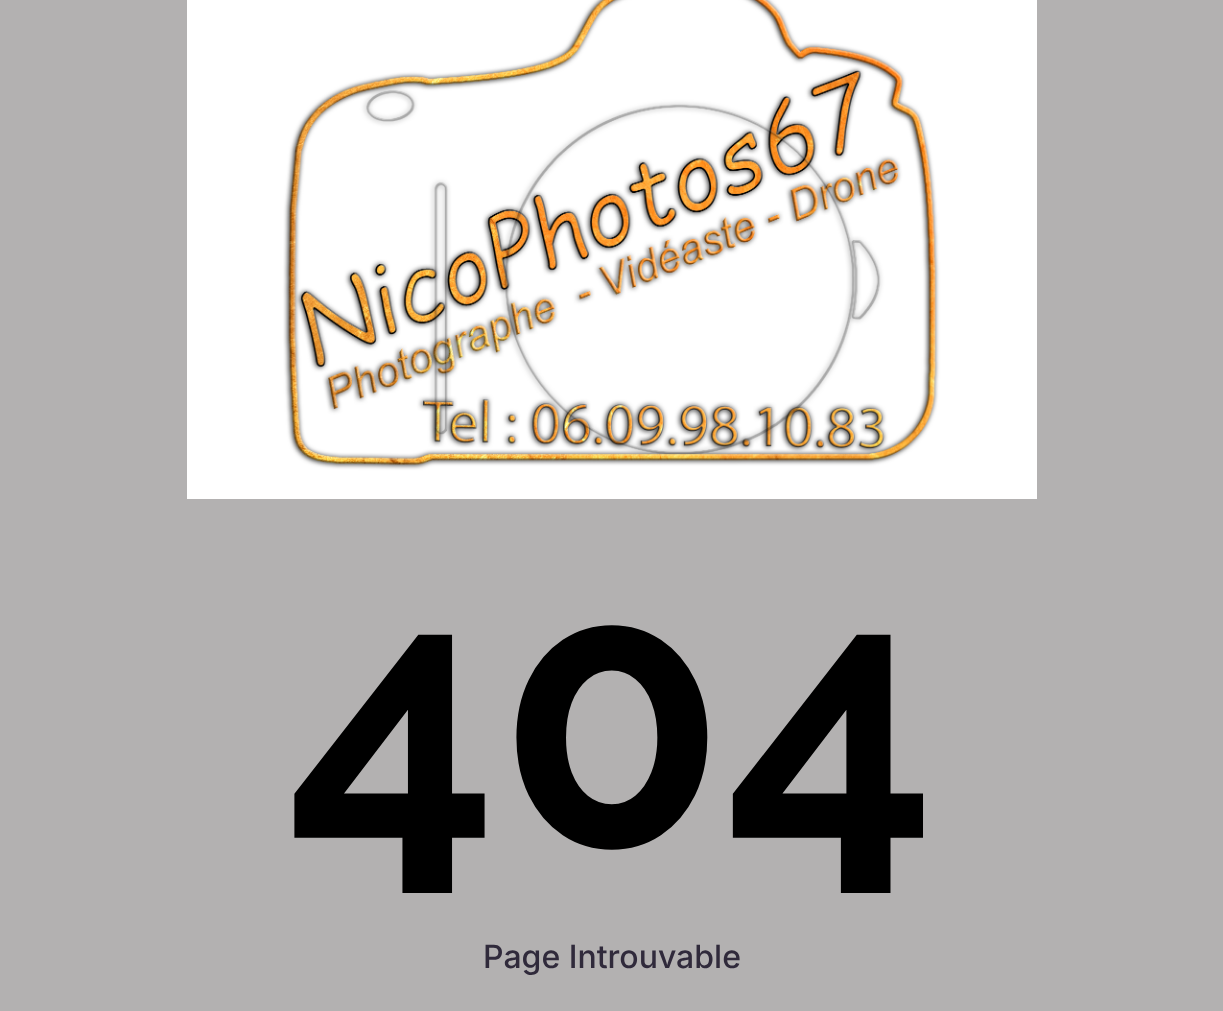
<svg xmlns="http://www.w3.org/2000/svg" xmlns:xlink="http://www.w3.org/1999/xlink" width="1223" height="1011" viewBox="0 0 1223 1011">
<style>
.cls-1{font:bold 370px Raleway;fill:#000000}
.cls-2{font:500 32px Inter;fill:#302a3b}
</style>
<rect width="100%" height="100%" fill="#b3b1b1"/>
<image xlink:href="image0.png" x="187" y="0" width="850" height="499"/>
<text class="cls-1" x="287" y="846">404</text>
<text class="cls-2" x="483" y="968">Page Introuvable</text>
</svg>
